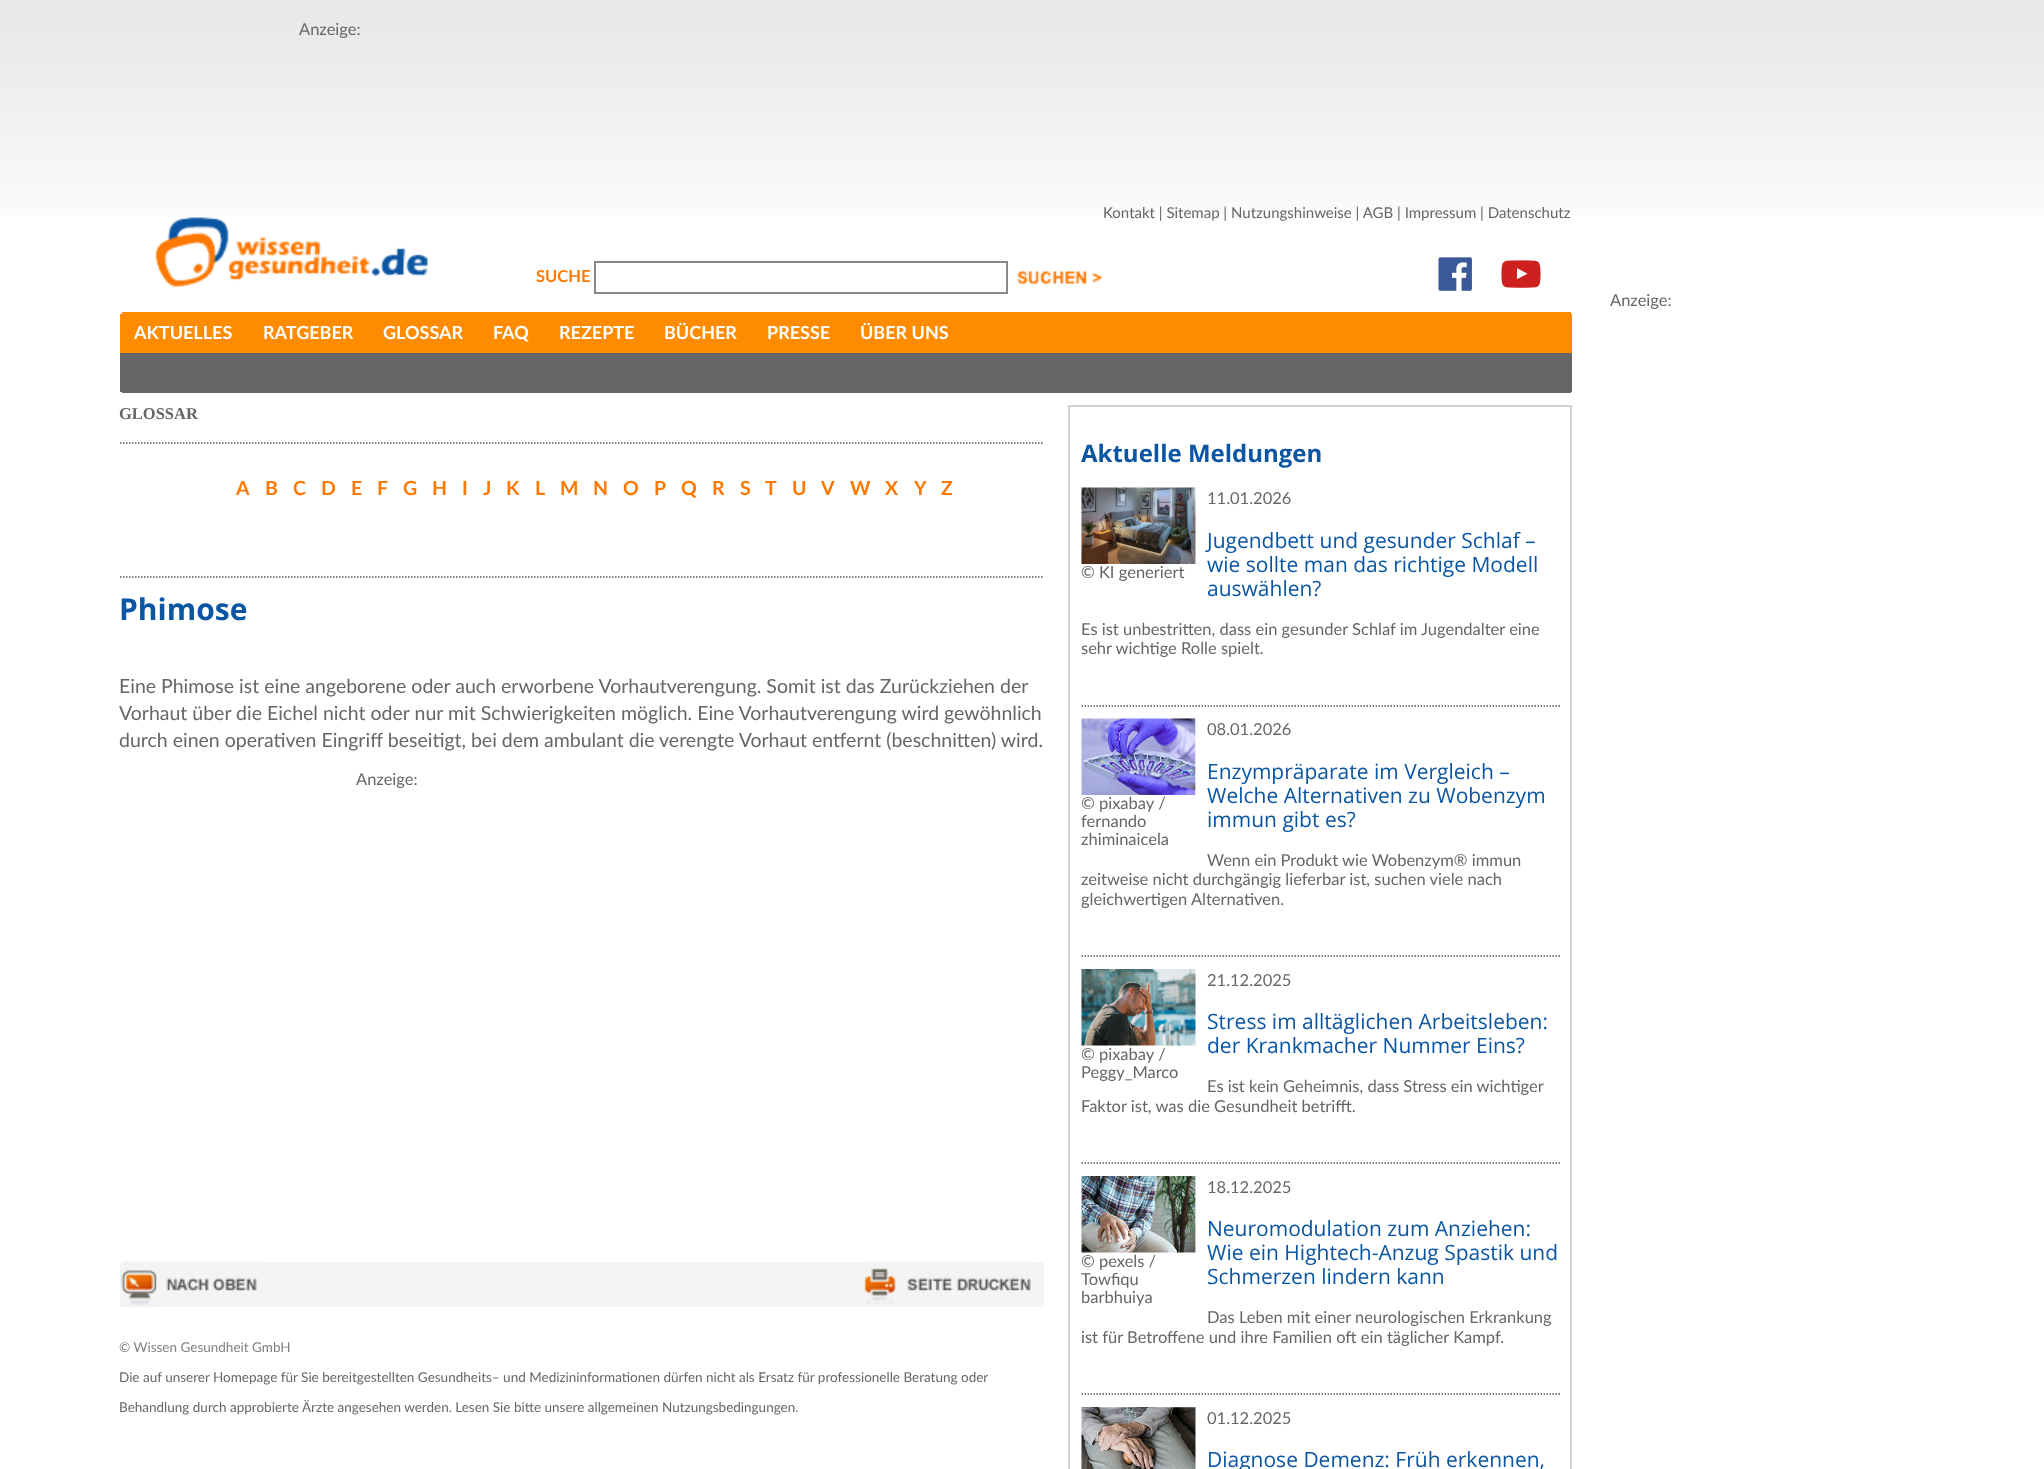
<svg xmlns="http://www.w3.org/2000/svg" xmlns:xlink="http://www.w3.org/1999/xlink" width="2044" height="1469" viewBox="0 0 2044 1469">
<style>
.cls-1{font:16.5px Lato;fill:#666666}
.cls-2{font:15px Lato;fill:#666666}
.cls-3{font:bold 16.5px Lato;fill:#ff7800}
.cls-4{font:bold 18px Lato;fill:#ffffff}
.cls-5{font:bold 16.5px Liberation Serif;fill:#666666}
.cls-6{font:bold 19.5px Lato;fill:#ff7800}
.cls-7{font:bold 30px Open Sans;fill:#0b56a3}
.cls-8{font:19.5px Lato;fill:#666666}
.cls-9{font:13.5px Lato;fill:#7f7f7f}
.cls-10{font:13.5px Lato;fill:#666666}
.cls-11{font:bold 24px Open Sans;fill:#0b56a3}
.cls-12{font:21px Open Sans;fill:#0b56a3}
</style>
<rect width="100%" height="100%" fill="#ffffff"/>
<image xlink:href="image0.png" x="0" y="0" width="2044" height="215"/>
<image xlink:href="image1.png" x="155" y="217" width="273" height="70"/>
<rect fill="none" stroke="#888888" stroke-width="2" x="595" y="262" width="412" height="31"/>
<image xlink:href="image2.png" x="1016" y="271" width="87" height="15"/>
<image xlink:href="image3.png" x="1438" y="257" width="34" height="34"/>
<image xlink:href="image4.png" x="1501" y="260" width="40" height="28"/>
<rect fill="#ff8b00" x="120" y="312" width="1452" height="41"/>
<rect fill="#ffffff" x="120" y="312" width="2" height="2"/>
<rect fill="#ffffff" x="1571" y="312" width="2" height="2"/>
<rect fill="#666666" x="120" y="353" width="1452" height="40"/>
<rect fill="#ffffff" x="120" y="392" width="2" height="1"/>
<rect fill="#ffffff" x="1571" y="392" width="2" height="1"/>
<path fill="none" stroke="#565656" stroke-width="1.5" stroke-dasharray="1.5 1.5" d="M120 443H1044"/>
<path fill="none" stroke="#565656" stroke-width="1.5" stroke-dasharray="1.5 1.5" d="M120 577H1044"/>
<rect fill="#f4f4f4" x="120" y="1262" width="924" height="45"/>
<image xlink:href="image5.png" x="120" y="1261" width="138" height="45"/>
<image xlink:href="image6.png" x="863" y="1261" width="169" height="43"/>
<rect fill="#ffffff" x="120" y="1262" width="2" height="2"/>
<rect fill="#ffffff" x="1043" y="1262" width="2" height="2"/>
<rect fill="none" stroke="#d0d0d0" stroke-width="2" x="1069" y="406" width="502" height="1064"/>
<path fill="none" stroke="#565656" stroke-width="1.5" stroke-dasharray="1.5 1.5" d="M1081.5 706H1561.5"/>
<image xlink:href="image7.png" x="1081" y="487" width="115" height="77"/>
<path fill="none" stroke="#565656" stroke-width="1.5" stroke-dasharray="1.5 1.5" d="M1081.5 956H1561.5"/>
<image xlink:href="image8.png" x="1081" y="718" width="115" height="77"/>
<path fill="none" stroke="#565656" stroke-width="1.5" stroke-dasharray="1.5 1.5" d="M1081.5 1163H1561.5"/>
<image xlink:href="image9.png" x="1081" y="969" width="115" height="77"/>
<path fill="none" stroke="#565656" stroke-width="1.5" stroke-dasharray="1.5 1.5" d="M1081.5 1394H1561.5"/>
<image xlink:href="image10.png" x="1081" y="1176" width="115" height="77"/>
<image xlink:href="image11.png" x="1081" y="1407" width="115" height="62"/>
<text class="cls-1" x="299" y="35">Anzeige:</text>
<text class="cls-2" x="1103" y="218">Kontakt | Sitemap | Nutzungshinweise | AGB | Impressum | Datenschutz</text>
<text class="cls-3" x="536" y="282">SUCHE</text>
<text class="cls-4" x="134" y="339">AKTUELLES</text>
<text class="cls-4" x="263" y="339">RATGEBER</text>
<text class="cls-4" x="383" y="339">GLOSSAR</text>
<text class="cls-4" x="493" y="339">FAQ</text>
<text class="cls-4" x="559" y="339">REZEPTE</text>
<text class="cls-4" x="664" y="339">BÜCHER</text>
<text class="cls-4" x="767" y="339">PRESSE</text>
<text class="cls-4" x="860" y="339">ÜBER UNS</text>
<text class="cls-1" x="1610" y="306">Anzeige:</text>
<text class="cls-5" x="119" y="419">GLOSSAR</text>
<text class="cls-6" x="236" y="495">A</text>
<text class="cls-6" x="265" y="495">B</text>
<text class="cls-6" x="293" y="495">C</text>
<text class="cls-6" x="321" y="495">D</text>
<text class="cls-6" x="351" y="495">E</text>
<text class="cls-6" x="377" y="495">F</text>
<text class="cls-6" x="403" y="495">G</text>
<text class="cls-6" x="432" y="495">H</text>
<text class="cls-6" x="462" y="495">I</text>
<text class="cls-6" x="483" y="495">J</text>
<text class="cls-6" x="506" y="495">K</text>
<text class="cls-6" x="535" y="495">L</text>
<text class="cls-6" x="560" y="495">M</text>
<text class="cls-6" x="593" y="495">N</text>
<text class="cls-6" x="623" y="495">O</text>
<text class="cls-6" x="654" y="495">P</text>
<text class="cls-6" x="681" y="495">Q</text>
<text class="cls-6" x="712" y="495">R</text>
<text class="cls-6" x="740" y="495">S</text>
<text class="cls-6" x="765" y="495">T</text>
<text class="cls-6" x="792" y="495">U</text>
<text class="cls-6" x="821" y="495">V</text>
<text class="cls-6" x="850" y="495">W</text>
<text class="cls-6" x="885" y="495">X</text>
<text class="cls-6" x="914" y="495">Y</text>
<text class="cls-6" x="941" y="495">Z</text>
<text class="cls-7" x="119" y="620">Phimose</text>
<text class="cls-8"><tspan x="119" y="693">Eine Phimose ist eine angeborene oder auch erworbene Vorhautverengung. Somit ist das Zurückziehen der</tspan><tspan x="119" y="720">Vorhaut über die Eichel nicht oder nur mit Schwierigkeiten möglich. Eine Vorhautverengung wird gewöhnlich</tspan><tspan x="119" y="747">durch einen operativen Eingriff beseitigt, bei dem ambulant die verengte Vorhaut entfernt (beschnitten) wird.</tspan></text>
<text class="cls-1" x="356" y="785">Anzeige:</text>
<text class="cls-9" x="119" y="1352">© Wissen Gesundheit GmbH</text>
<text class="cls-10" x="119" y="1382">Die auf unserer Homepage für Sie bereitgestellten Gesundheits– und Medizininformationen dürfen nicht als Ersatz für professionelle Beratung oder</text>
<text class="cls-10" x="119" y="1412">Behandlung durch approbierte</text>
<text class="cls-10" x="302" y="1412">Ärzte angesehen werden. Lesen Sie bitte unsere allgemeinen Nutzungsbedingungen.</text>
<text class="cls-11" x="1081" y="462">Aktuelle Meldungen</text>
<text class="cls-1" x="1207" y="504">11.01.2026</text>
<text class="cls-1" x="1081" y="578">© KI generiert</text>
<text class="cls-12"><tspan x="1207" y="548">Jugendbett und gesunder Schlaf –</tspan><tspan x="1207" y="572">wie sollte man das richtige Modell</tspan><tspan x="1207" y="596">auswählen?</tspan></text>
<text class="cls-1"><tspan x="1081" y="635">Es ist unbestritten, dass ein gesunder Schlaf im Jugendalter eine</tspan><tspan x="1081" y="654">sehr wichtige Rolle spielt.</tspan></text>
<text class="cls-1" x="1207" y="735">08.01.2026</text>
<text class="cls-1"><tspan x="1081" y="809">© pixabay /</tspan><tspan x="1081" y="827">fernando</tspan><tspan x="1081" y="845">zhiminaicela</tspan></text>
<text class="cls-12"><tspan x="1207" y="779">Enzympräparate im Vergleich –</tspan><tspan x="1207" y="803">Welche Alternativen zu Wobenzym</tspan><tspan x="1207" y="827">immun gibt es?</tspan></text>
<text class="cls-1" x="1207" y="866">Wenn ein Produkt wie Wobenzym® immun</text>
<text class="cls-1"><tspan x="1081" y="885">zeitweise nicht durchgängig lieferbar ist, suchen viele nach</tspan><tspan x="1081" y="905">gleichwertigen Alternativen.</tspan></text>
<text class="cls-1" x="1207" y="986">21.12.2025</text>
<text class="cls-12"><tspan x="1207" y="1029">Stress im alltäglichen Arbeitsleben:</tspan><tspan x="1207" y="1053">der Krankmacher Nummer Eins?</tspan></text>
<text class="cls-1"><tspan x="1081" y="1060">© pixabay /</tspan><tspan x="1081" y="1078">Peggy_Marco</tspan></text>
<text class="cls-1" x="1207" y="1092">Es ist kein Geheimnis, dass Stress ein wichtiger</text>
<text class="cls-1" x="1081" y="1112">Faktor ist, was die Gesundheit betrifft.</text>
<text class="cls-1" x="1207" y="1193">18.12.2025</text>
<text class="cls-1"><tspan x="1081" y="1267">© pexels /</tspan><tspan x="1081" y="1285">Towfiqu</tspan><tspan x="1081" y="1303">barbhuiya</tspan></text>
<text class="cls-12"><tspan x="1207" y="1236">Neuromodulation zum Anziehen:</tspan><tspan x="1207" y="1260">Wie ein Hightech-Anzug Spastik und</tspan><tspan x="1207" y="1284">Schmerzen lindern kann</tspan></text>
<text class="cls-1" x="1207" y="1323">Das Leben mit einer neurologischen Erkrankung</text>
<text class="cls-1" x="1081" y="1343">ist für Betroffene und ihre Familien oft ein täglicher Kampf.</text>
<text class="cls-1" x="1207" y="1424">01.12.2025</text>
<text class="cls-12" x="1207" y="1467">Diagnose Demenz: Früh erkennen,</text>
</svg>
